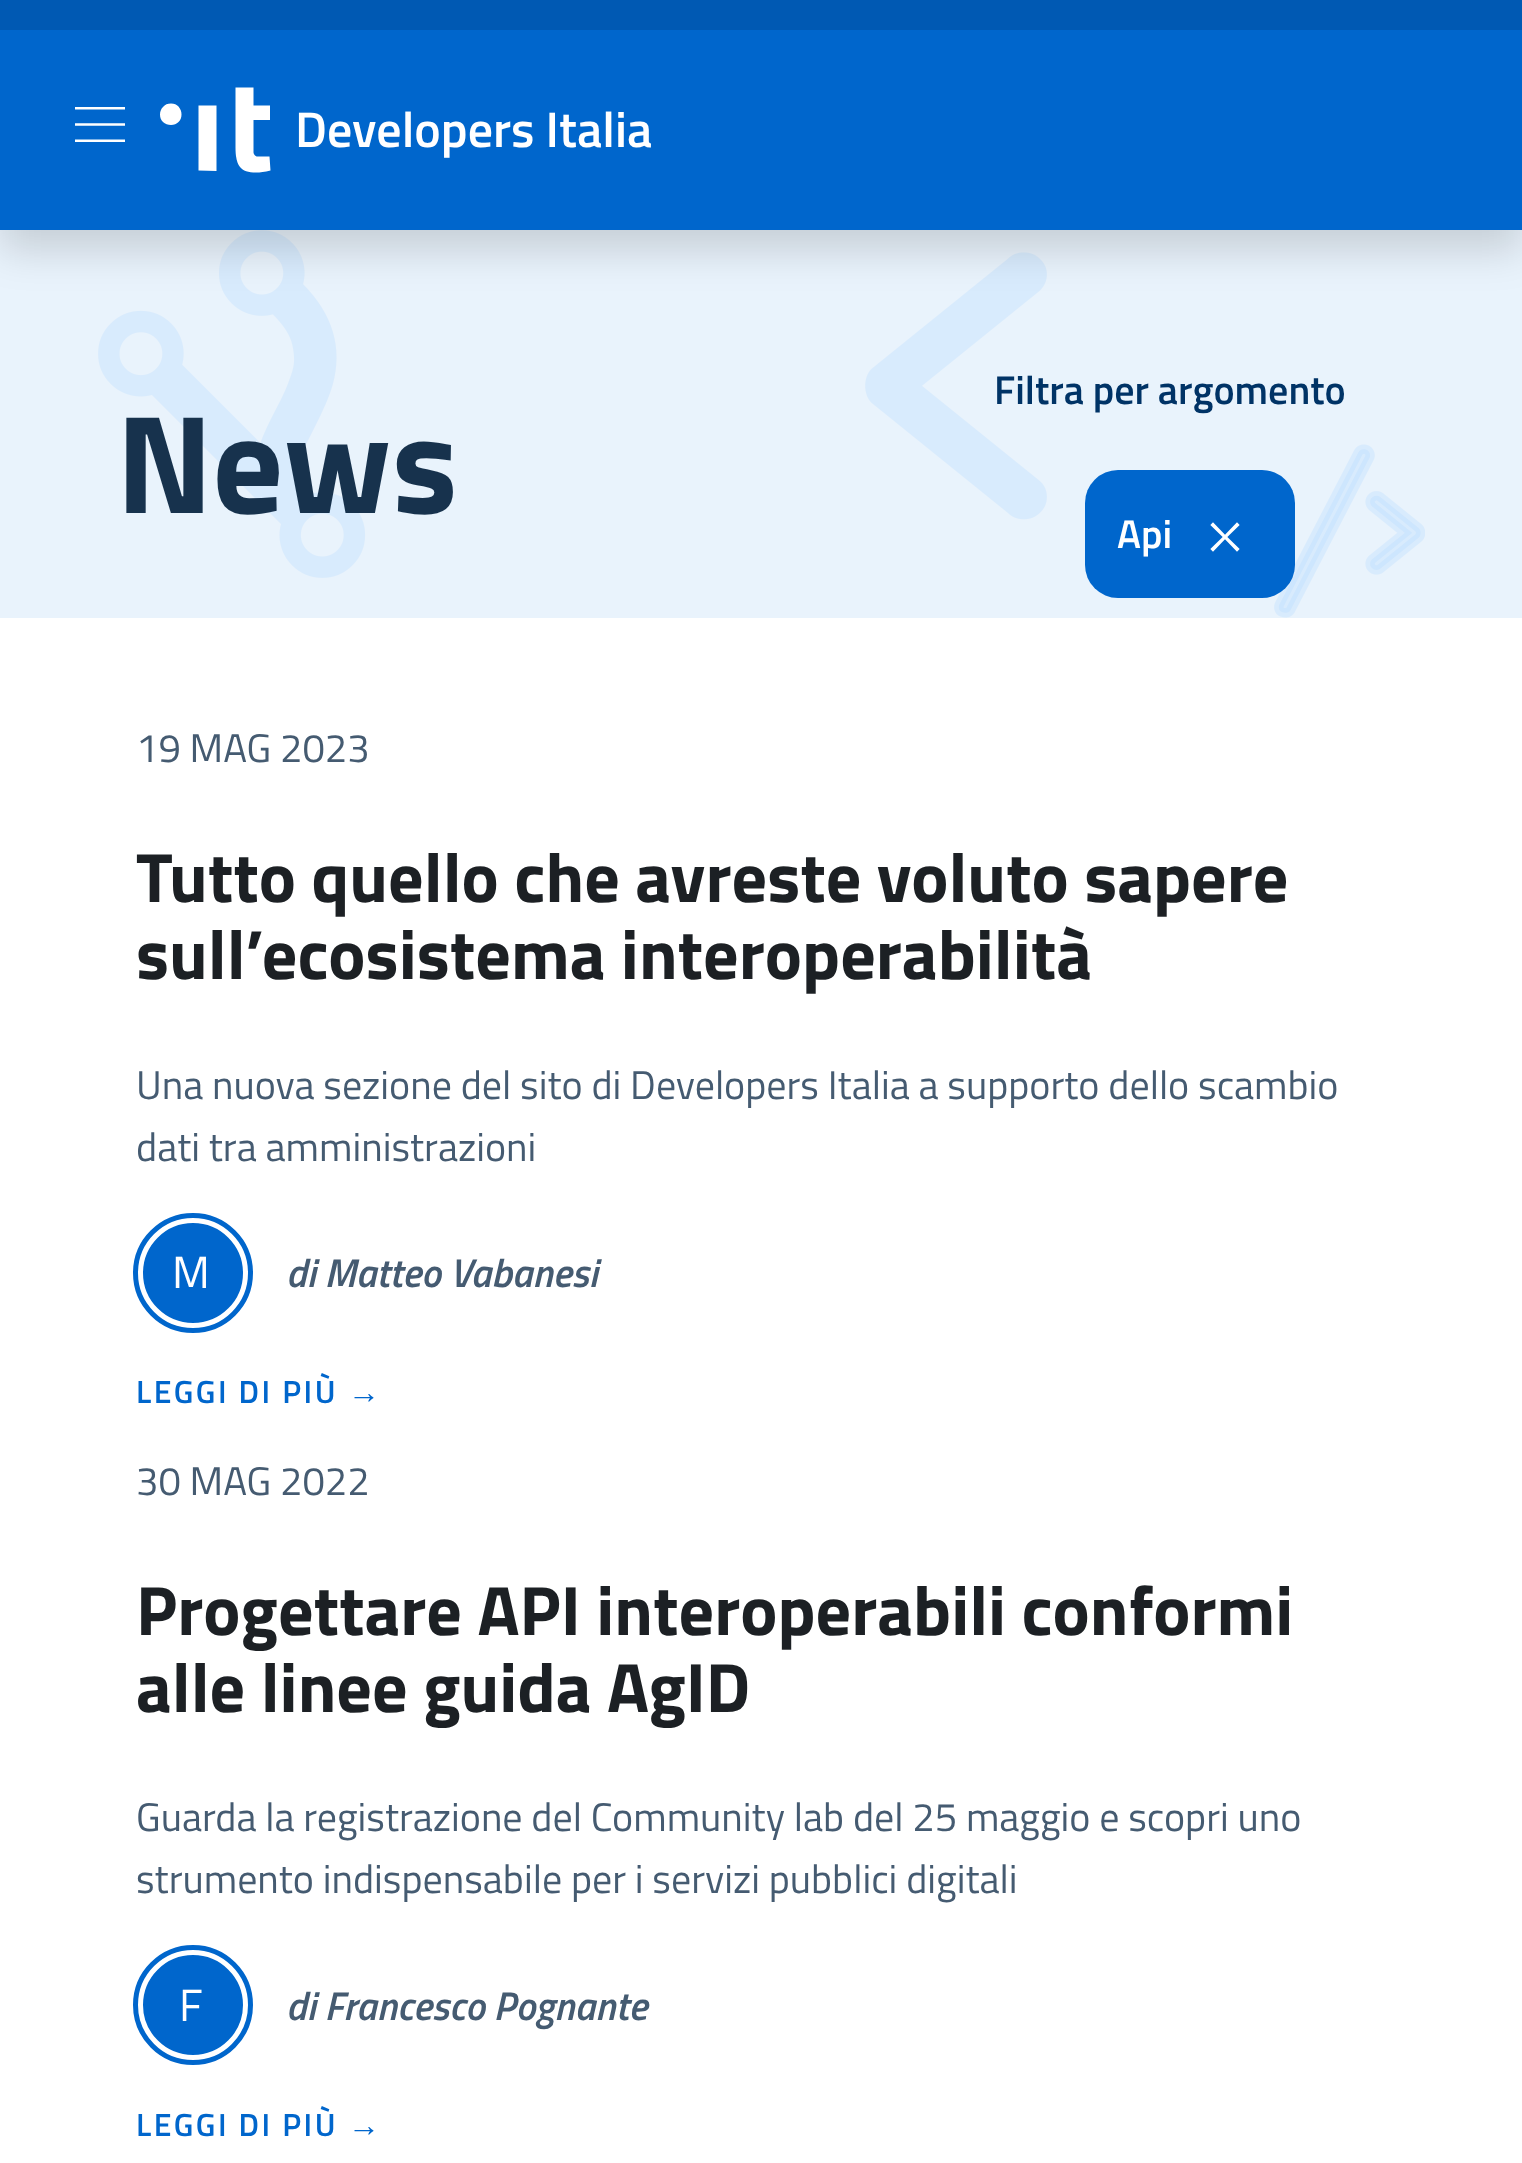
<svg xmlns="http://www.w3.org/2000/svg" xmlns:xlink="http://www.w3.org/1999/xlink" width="1522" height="2163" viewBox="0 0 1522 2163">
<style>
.cls-1{font:600 50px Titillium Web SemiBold;fill:#ffffff}
.cls-2{font:bold 140px Titillium Web;fill:#17324d}
.cls-3{font:600 40px Titillium Web SemiBold;fill:#003366}
.cls-4{font:600 40px Titillium Web SemiBold;fill:#ffffff}
.cls-5{font:40px Titillium Web;fill:#455b71}
.cls-6{font:bold 70px Titillium Web;fill:#1c2024}
.cls-7{font:45px Titillium Web;fill:#ffffff}
.cls-8{font:italic 600 40px Titillium Web SemiBold;fill:#455b71}
.cls-9{font:600 32px Titillium Web SemiBold;letter-spacing:2.5px;fill:#0066cc}
.cls-10{font:bold 32px Liberation Sans;letter-spacing:2.5px;fill:#0066cc}
</style>
<rect width="100%" height="100%" fill="#ffffff"/>
<rect fill="#e9f3fc" x="0" y="230" width="1522" height="388"/>
<image xlink:href="image2.png" x="98" y="230" width="1327" height="388"/>
<rect fill="#000000" fill-opacity="0.15" filter="blur(20px)" x="0" y="-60" width="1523" height="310"/>
<rect fill="#0059b3" x="0" y="0" width="1522" height="30"/>
<rect fill="#0066cc" x="0" y="30" width="1522" height="200"/>
<image xlink:href="image0.png" x="75" y="107" width="50" height="35"/>
<image xlink:href="image1.png" x="160" y="87" width="111" height="86"/>
<rect fill="#0066cc" x="1085" y="470" width="210" height="128" rx="33"/>
<image xlink:href="image3.png" x="1210" y="522" width="30" height="30"/>
<circle fill="#0066cc" stroke="#ffffff" stroke-width="5" cx="193" cy="1273" r="52.5"/>
<circle fill="none" stroke="#0066cc" stroke-width="5" cx="193" cy="1273" r="57.5"/>
<circle fill="#0066cc" stroke="#ffffff" stroke-width="5" cx="193" cy="2005" r="52.5"/>
<circle fill="none" stroke="#0066cc" stroke-width="5" cx="193" cy="2005" r="57.5"/>
<text class="cls-1" x="295" y="147">Developers Italia</text>
<text class="cls-2" x="116" y="513">News</text>
<text class="cls-3" x="994" y="404">Filtra per argomento</text>
<text class="cls-4" x="1117" y="548">Api</text>
<text class="cls-5" x="136" y="762">19 MAG 2023</text>
<text class="cls-6"><tspan x="136" y="902">Tutto quello che avreste voluto sapere</tspan><tspan x="136" y="979">sull’ecosistema interoperabilità</tspan></text>
<text class="cls-5"><tspan x="136" y="1099">Una nuova sezione del sito di Developers Italia a supporto dello scambio</tspan><tspan x="136" y="1161">dati tra amministrazioni</tspan></text>
<text class="cls-7" x="172" y="1288">M</text>
<text class="cls-8" x="286" y="1287">di Matteo Vabanesi</text>
<text class="cls-9" x="136" y="1403">LEGGI DI PIÙ</text>
<text class="cls-10" x="348" y="1403">→</text>
<text class="cls-5" x="136" y="1495">30 MAG 2022</text>
<text class="cls-6"><tspan x="136" y="1635">Progettare API interoperabili conformi</tspan><tspan x="136" y="1712">alle linee guida AgID</tspan></text>
<text class="cls-5"><tspan x="136" y="1831">Guarda la registrazione del Community lab del 25 maggio e scopri uno</tspan><tspan x="136" y="1893">strumento indispensabile per i servizi pubblici digitali</tspan></text>
<text class="cls-7" x="179" y="2021">F</text>
<text class="cls-8" x="286" y="2020">di Francesco Pognante</text>
<text class="cls-9" x="136" y="2136">LEGGI DI PIÙ</text>
<text class="cls-10" x="348" y="2136">→</text>
</svg>
